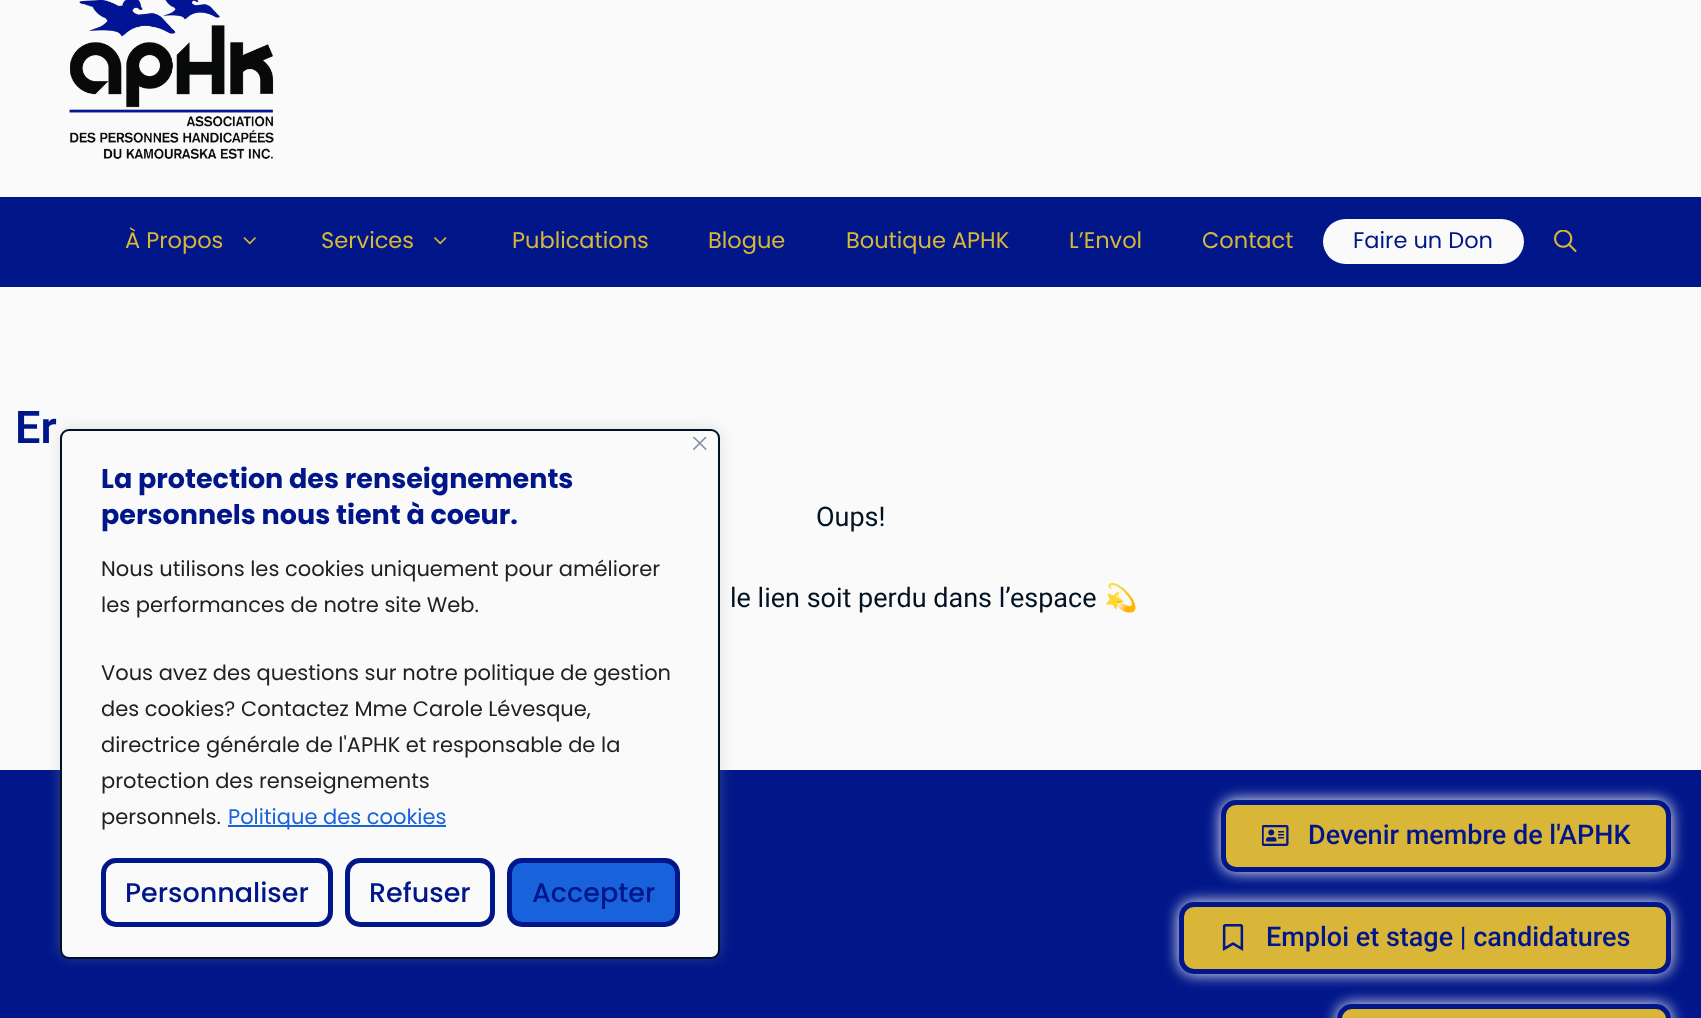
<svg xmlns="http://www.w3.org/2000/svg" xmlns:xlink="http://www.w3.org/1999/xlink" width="1701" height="1018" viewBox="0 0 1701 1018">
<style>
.cls-1{font:22.5px Poppins;fill:#d9b638}
.cls-2{font:22.5px Poppins;fill:#011689}
.cls-3{font:600 45px Roboto;fill:#011689}
.cls-4{font:27px Roboto;fill:#011222}
.cls-5{font:27px Noto Color Emoji;fill:#011222}
.cls-6{font:bold 27px Poppins;fill:#011689}
.cls-7{font:21px Poppins;fill:#212121}
.cls-8{font:21px Poppins;fill:#1863dc}
.cls-9{font:500 27px Poppins;fill:#011689}
.cls-10{font:500 27px Roboto;fill:#011689}
</style>
<rect width="100%" height="100%" fill="#fafafa"/>
<image xlink:href="image0.png" x="69" y="0" width="205" height="159"/>
<rect fill="#011689" x="0" y="197" width="1701" height="90"/>
<image xlink:href="image1.png" x="243" y="237" width="13" height="8"/>
<image xlink:href="image2.png" x="434" y="237" width="13" height="8"/>
<rect fill="#fafafa" x="1323" y="219" width="201" height="45" rx="22.5"/>
<image xlink:href="image3.png" x="1554" y="230" width="23" height="22"/>
<rect fill="#011689" x="0" y="770" width="1701" height="248"/>
<rect fill="#acabab" fill-opacity="0.3" filter="blur(7.5px)" x="60" y="428" width="660" height="529" rx="9"/>
<rect fill="#fafafa" stroke="#011222" stroke-width="2" x="61" y="430" width="658" height="528" rx="8"/>
<image xlink:href="image4.png" x="693" y="437" width="14" height="13"/>
<rect fill="#1863dc" x="228" y="825" width="218" height="2"/>
<rect fill="none" stroke="#011689" stroke-width="5" x="103.5" y="860.5" width="227" height="64" rx="12.5"/>
<rect fill="none" stroke="#011689" stroke-width="5" x="347.5" y="860.5" width="145" height="64" rx="12.5"/>
<rect fill="#1863dc" stroke="#011689" stroke-width="5" x="509.5" y="860.5" width="168" height="64" rx="12.5"/>
<rect fill="#fafafa" filter="blur(7.5px)" x="1221" y="800" width="450" height="72" rx="15"/>
<rect fill="#d9b638" stroke="#011689" stroke-width="5" x="1223.5" y="802.5" width="445" height="67" rx="12.5"/>
<image xlink:href="image5.png" x="1262" y="825" width="27" height="21"/>
<rect fill="#fafafa" filter="blur(7.5px)" x="1179" y="902" width="492" height="72" rx="15"/>
<rect fill="#d9b638" stroke="#011689" stroke-width="5" x="1181.5" y="904.5" width="487" height="67" rx="12.5"/>
<image xlink:href="image6.png" x="1222" y="924" width="22" height="27"/>
<rect fill="#fafafa" filter="blur(7.5px)" x="1337" y="1004" width="334" height="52" rx="15"/>
<rect fill="#d9b638" stroke="#011689" stroke-width="5" x="1339.5" y="1006.5" width="329" height="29" rx="12.5"/>
<text class="cls-1" x="125" y="248">À Propos</text>
<text class="cls-1" x="321" y="248">Services</text>
<text class="cls-1" x="512" y="248">Publications</text>
<text class="cls-1" x="708" y="248">Blogue</text>
<text class="cls-1" x="846" y="248">Boutique APHK</text>
<text class="cls-1" x="1069" y="248">L’Envol</text>
<text class="cls-1" x="1202" y="248">Contact</text>
<text class="cls-2" x="1353" y="248">Faire un Don</text>
<text class="cls-3" x="15" y="443">Er</text>
<text class="cls-4" x="816" y="526">Oups!</text>
<text class="cls-4" x="730" y="607">le lien soit perdu dans l’espace</text>
<text class="cls-5" x="1104" y="607">💫</text>
<text class="cls-6"><tspan x="101" y="488">La protection des renseignements</tspan><tspan x="101" y="524">personnels nous tient à coeur.</tspan></text>
<text class="cls-7"><tspan x="101" y="576">Nous utilisons les cookies uniquement pour améliorer</tspan><tspan x="101" y="612">les performances de notre site Web.</tspan></text>
<text class="cls-7"><tspan x="101" y="680">Vous avez des questions sur notre politique de gestion</tspan><tspan x="101" y="716">des cookies? Contactez Mme Carole Lévesque,</tspan><tspan x="101" y="752">directrice générale de l'APHK et responsable de la</tspan><tspan x="101" y="788">protection des renseignements</tspan><tspan x="101" y="824">personnels.</tspan></text>
<text class="cls-8" x="228" y="824">Politique des cookies</text>
<text class="cls-9" x="125" y="902">Personnaliser</text>
<text class="cls-9" x="369" y="902">Refuser</text>
<text class="cls-9" x="532" y="902">Accepter</text>
<text class="cls-10" x="1308" y="844">Devenir membre de l'APHK</text>
<text class="cls-10" x="1266" y="946">Emploi et stage | candidatures</text>
</svg>
